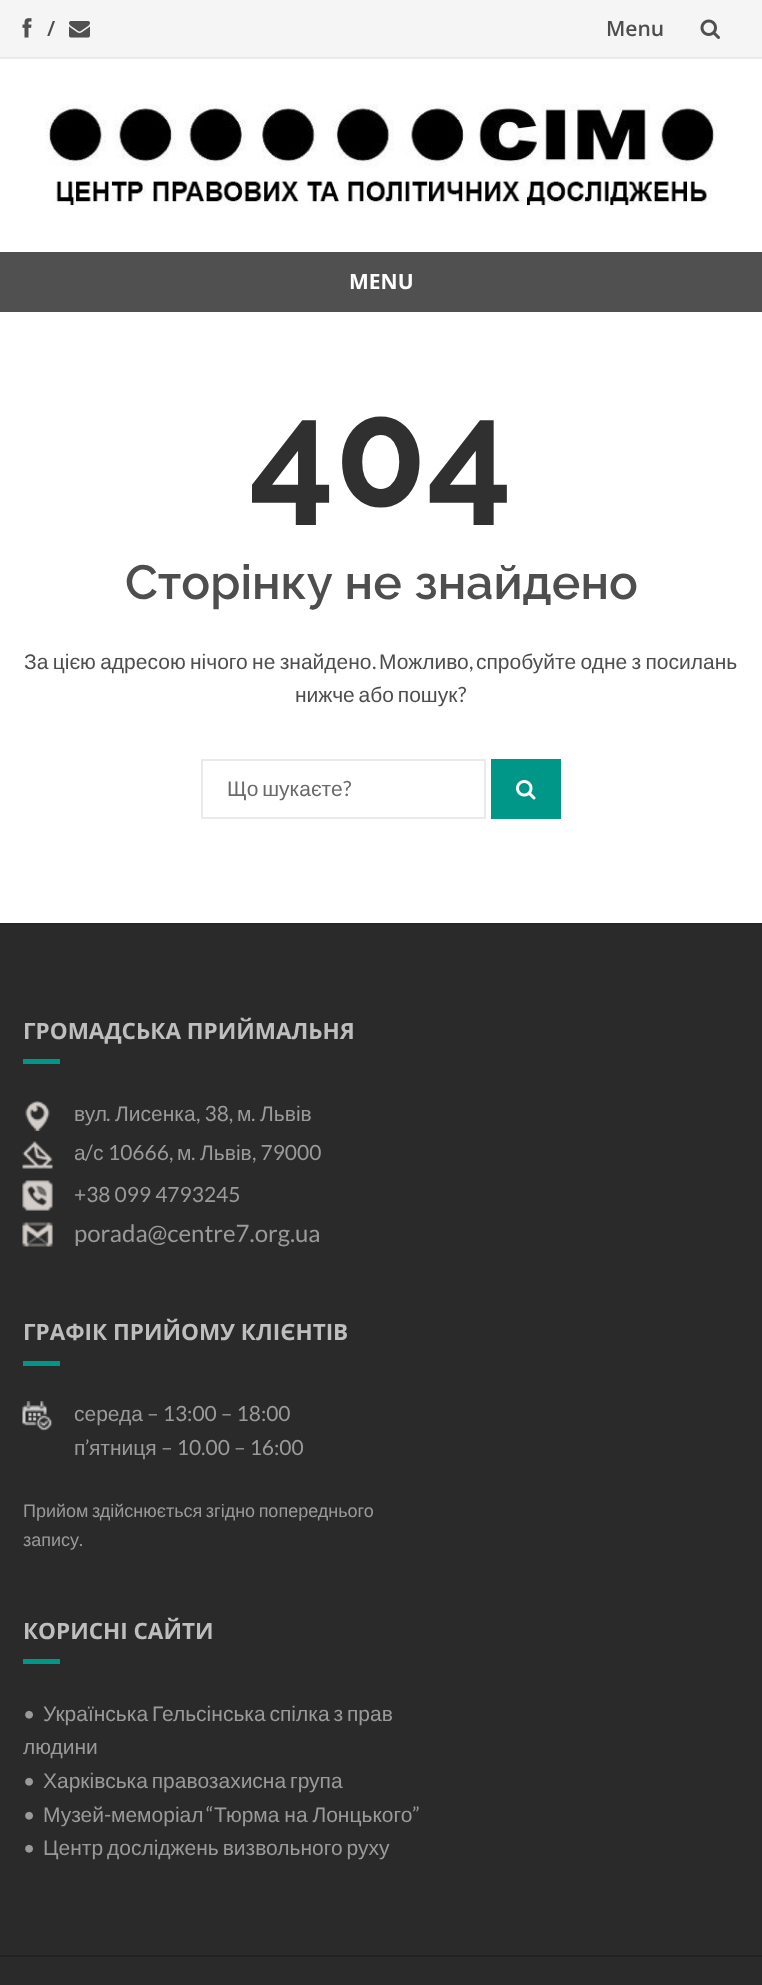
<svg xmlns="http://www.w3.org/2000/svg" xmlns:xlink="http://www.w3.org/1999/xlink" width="762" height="1985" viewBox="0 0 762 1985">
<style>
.cls-1{font:600 21px Open Sans;fill:#4e4e4e}
.cls-2{font:bold 21px Open Sans;fill:#ffffff}
.cls-3{font:bold 150px Raleway;fill:#303030}
.cls-4{font:600 48px Raleway;fill:#4e4e4e}
.cls-5{font:21px Liberation Sans;fill:#4e4e4e}
.cls-6{font:21px Lato;fill:#4e4e4e}
.cls-7{font:21px Liberation Sans;fill:#6a6a6a}
.cls-8{font:21px Lato;fill:#6a6a6a}
.cls-9{font:bold 22.5px Open Sans;fill:#bebebe}
.cls-10{font:21px Liberation Sans;fill:#9a9a9a}
.cls-11{font:21px Lato;fill:#9a9a9a}
.cls-12{font:24px Lato;fill:#9a9a9a}
.cls-13{font:18px Liberation Sans;fill:#9a9a9a}
.cls-14{font:18px Lato;fill:#9a9a9a}
</style>
<rect width="100%" height="100%" fill="#ffffff"/>
<rect fill="#f5f5f5" x="0" y="0" width="762" height="57"/>
<rect fill="#eaeaea" x="0" y="57" width="762" height="2"/>
<image xlink:href="image0.png" x="22" y="18" width="10" height="20"/>
<image xlink:href="image1.png" x="69" y="21" width="21" height="17"/>
<image xlink:href="image2.png" x="700" y="19" width="20" height="20"/>
<image xlink:href="image3.png" x="45" y="103" width="672" height="103"/>
<rect fill="#505050" x="0" y="252" width="762" height="60"/>
<rect fill="none" stroke="#eaeaea" stroke-width="2" x="202" y="760" width="283" height="58"/>
<rect fill="#009688" x="491" y="759" width="70" height="60"/>
<image xlink:href="image4.png" x="516" y="780" width="20" height="20"/>
<rect fill="#2a2a2a" x="0" y="925" width="762" height="1060"/>
<rect fill="#262626" x="0" y="923" width="762" height="2"/>
<rect fill="#009688" x="23" y="1059" width="37" height="5"/>
<image xlink:href="image5.png" x="25" y="1101" width="25" height="30"/>
<image xlink:href="image6.png" x="22" y="1141" width="31" height="28"/>
<image xlink:href="image7.png" x="22" y="1180" width="31" height="31"/>
<image xlink:href="image8.png" x="22" y="1222" width="31" height="25"/>
<rect fill="#009688" x="23" y="1361" width="37" height="5"/>
<image xlink:href="image9.png" x="22" y="1401" width="31" height="30"/>
<rect fill="#009688" x="23" y="1659" width="37" height="5"/>
<rect fill="#222222" x="0" y="1955" width="762" height="2"/>
<text class="cls-1" x="47" y="36">/</text>
<text class="cls-1" x="606" y="36">Menu</text>
<text class="cls-2" x="349" y="289">MENU</text>
<text class="cls-3" x="249" y="506">404</text>
<text class="cls-4" x="125" y="599" word-spacing="1">Сторінку не знайдено</text>
<text class="cls-5" x="24" y="669" word-spacing="-1.5">За цією адресою нічого не знайдено</text>
<text class="cls-6" x="372" y="669">.</text>
<text class="cls-5" x="379" y="669">Можливо</text>
<text class="cls-6" x="469" y="669">,</text>
<text class="cls-5" x="476" y="669" word-spacing="-1.5">спробуйте одне з посилань</text>
<text class="cls-5" x="295" y="702" word-spacing="-2">нижче або пошук</text>
<text class="cls-6" x="458" y="702">?</text>
<text class="cls-7" x="227" y="796" word-spacing="-2">Що шукаєте</text>
<text class="cls-8" x="343" y="796">?</text>
<text class="cls-9" x="23" y="1039">ГРОМАДСЬКА ПРИЙМАЛЬНЯ</text>
<text class="cls-10" x="74" y="1121">вул</text>
<text class="cls-11" x="106" y="1121">.</text>
<text class="cls-10" x="115" y="1121">Лисенка</text>
<text class="cls-11" x="196" y="1121">, 38,</text>
<text class="cls-10" x="237" y="1121">м</text>
<text class="cls-11" x="251" y="1121">.</text>
<text class="cls-10" x="260" y="1121">Львів</text>
<text class="cls-10" x="74" y="1160">а</text>
<text class="cls-11" x="85" y="1160">/</text>
<text class="cls-10" x="93" y="1160">с</text>
<text class="cls-11" x="108" y="1160">10666,</text>
<text class="cls-10" x="177" y="1160">м</text>
<text class="cls-11" x="191" y="1160">.</text>
<text class="cls-10" x="200" y="1160">Львів</text>
<text class="cls-11" x="252" y="1160">, 79000</text>
<text class="cls-11" x="74" y="1202">+38 099 4793245</text>
<text class="cls-12" x="74" y="1242">porada@centre7.org.ua</text>
<text class="cls-9" x="23" y="1340">ГРАФІК ПРИЙОМУ КЛІЄНТІВ</text>
<text class="cls-10" x="74" y="1421">середа</text>
<text class="cls-11" x="147" y="1421">– 13:00 – 18:00</text>
<text class="cls-10" x="74" y="1455">п</text>
<text class="cls-11" x="85" y="1455">’</text>
<text class="cls-10" x="89" y="1455">ятниця</text>
<text class="cls-11" x="161" y="1455">– 10.00 – 16:00</text>
<text class="cls-13"><tspan x="23" y="1517" word-spacing="-1.5">Прийом здійснюється згідно попереднього</tspan><tspan x="23" y="1546">запису</tspan></text>
<text class="cls-14" x="79" y="1546">.</text>
<text class="cls-9" x="23" y="1639">КОРИСНІ САЙТИ</text>
<text class="cls-11" x="23" y="1721">•</text>
<text class="cls-10" x="43" y="1721" word-spacing="-2">Українська Гельсінська спілка з прав</text>
<text class="cls-10" x="23" y="1754">людини</text>
<text class="cls-11" x="23" y="1788">•</text>
<text class="cls-10" x="43" y="1788" word-spacing="-2">Харківська правозахисна група</text>
<text class="cls-11" x="23" y="1822">•</text>
<text class="cls-10" x="43" y="1822">Музей</text>
<text class="cls-11" x="104" y="1822">-</text>
<text class="cls-10" x="111" y="1822">меморіал</text>
<text class="cls-11" x="206" y="1822">“</text>
<text class="cls-10" x="214" y="1822" word-spacing="-1">Тюрма на Лонцького</text>
<text class="cls-11" x="412" y="1822">”</text>
<text class="cls-11" x="23" y="1855">•</text>
<text class="cls-10" x="43" y="1855" word-spacing="-2">Центр досліджень визвольного руху</text>
</svg>
